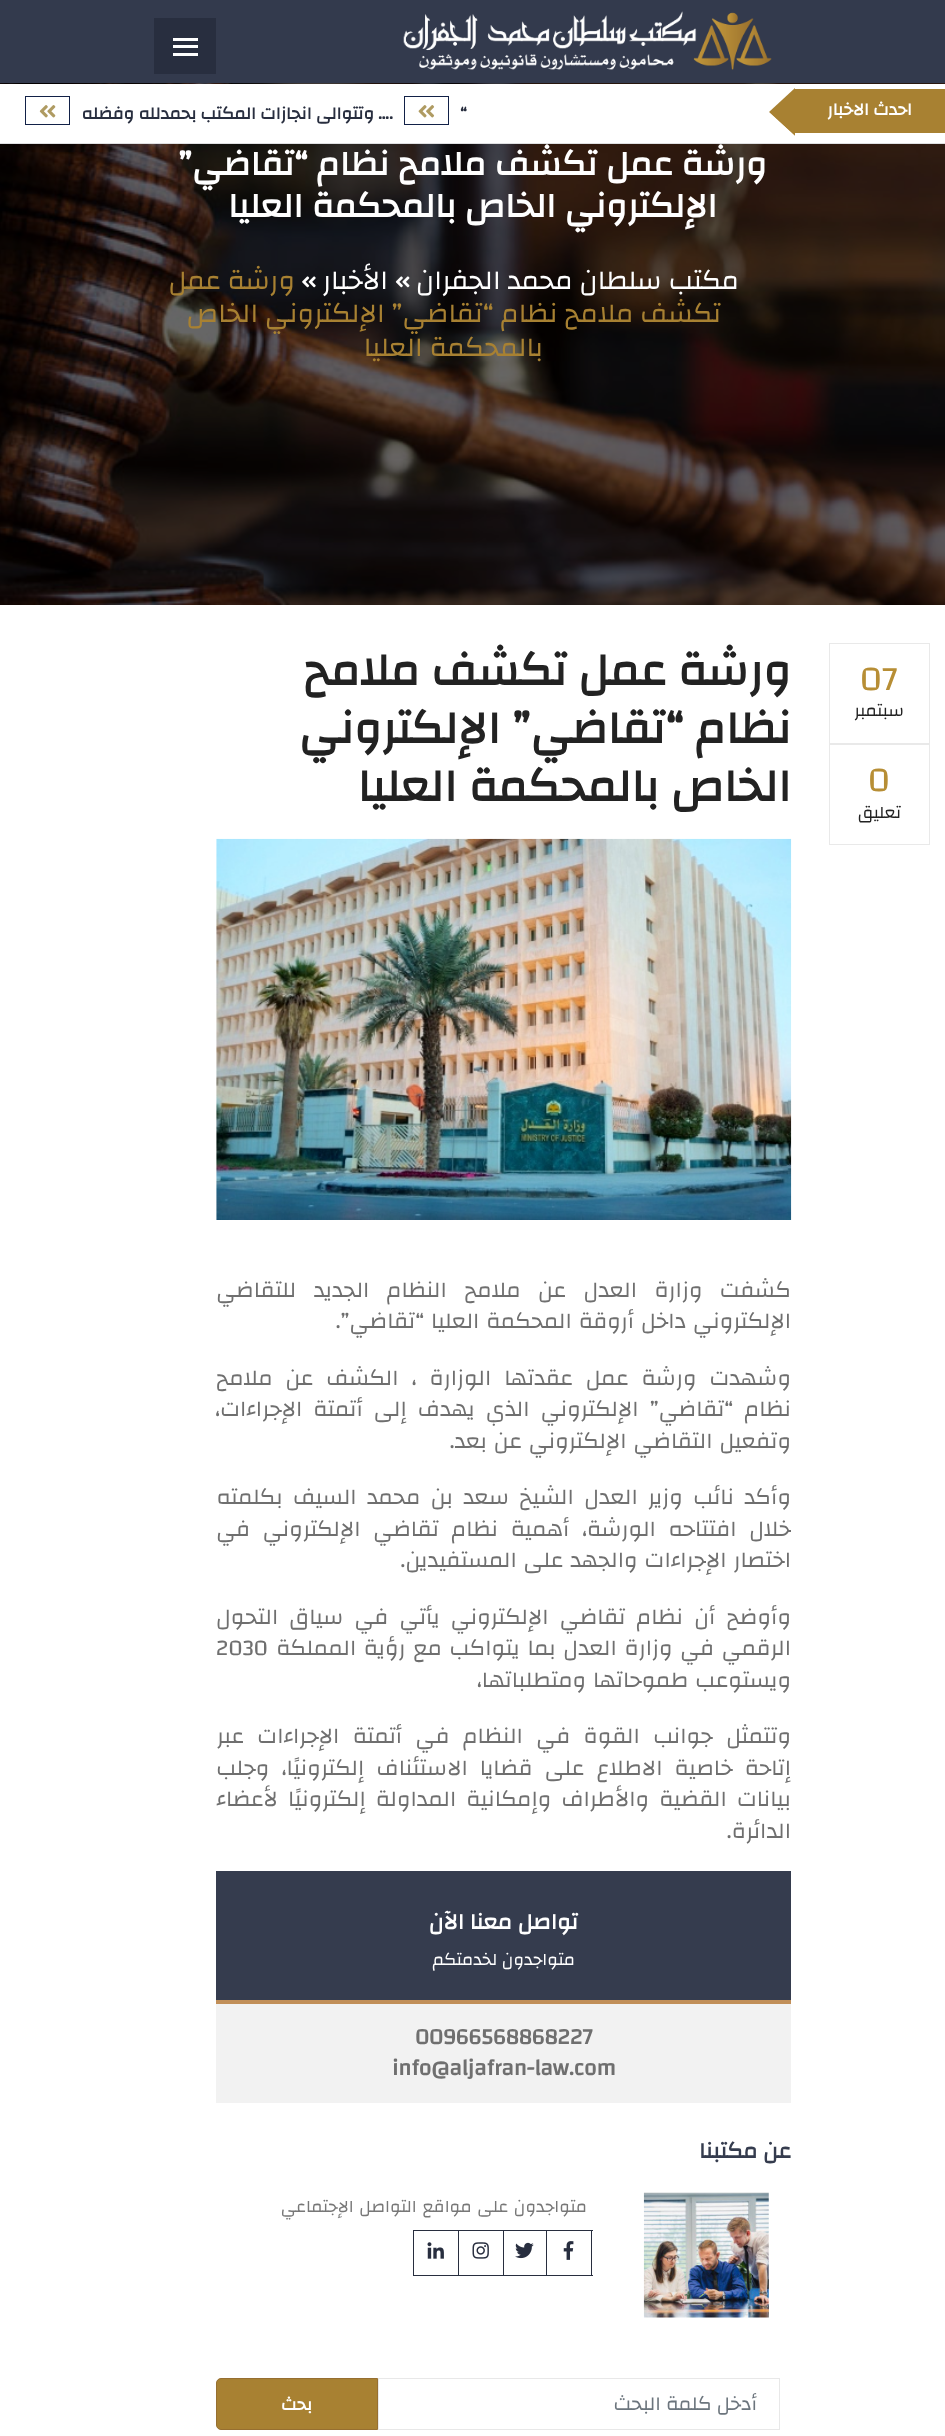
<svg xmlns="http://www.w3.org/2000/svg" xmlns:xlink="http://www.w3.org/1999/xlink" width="945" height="2436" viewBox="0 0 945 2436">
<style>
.cls-1{font:bold 17.5px Changa;direction:rtl;fill:#ffffff}
.cls-2{font:bold 17.5px Changa;fill:#282e3f}
.cls-3{font:bold 17.5px Changa;direction:rtl;fill:#282e3f}
.cls-4{font:bold 35px Changa;direction:rtl;fill:#ffffff}
.cls-5{font:27.5px Changa;direction:rtl;fill:#ffffff}
.cls-6{font:27.5px Changa;direction:rtl;fill:#a88132}
.cls-7{font:35px Changa;fill:#b78e35}
.cls-8{font:17.5px Changa;direction:rtl;fill:#222222}
.cls-9{font:bold 46.25px Changa;direction:rtl;fill:#222222}
.cls-10{font:22.5px Changa;direction:rtl;fill:#6f6f6f}
.cls-11{font:22.5px Changa;fill:#6f6f6f}
.cls-12{font:bold 22.5px Changa;direction:rtl;fill:#ffffff}
.cls-13{font:17.5px Changa;direction:rtl;fill:#ffffff}
.cls-14{font:bold 22.5px Changa;fill:#6f6f6f}
.cls-15{font:bold 22.5px Changa;direction:rtl;fill:#353c4e}
.cls-16{font:17.5px Changa;direction:rtl;fill:#777777}
.cls-17{font:20px Changa;direction:rtl;fill:#6c757d}
</style>
<rect width="100%" height="100%" fill="#ffffff"/>
<image xlink:href="image3.png" x="0" y="83" width="945" height="522"/>
<rect fill="#000000" fill-opacity="0.1" filter="blur(12.5px)" x="0" y="5" width="945" height="83"/>
<rect fill="#000000" fill-opacity="0.2" filter="blur(2px)" x="0" y="0" width="945" height="83"/>
<rect fill="#333a4d" x="0" y="0" width="945" height="83"/>
<image xlink:href="image0.png" x="403" y="11" width="369" height="59"/>
<rect fill="#282e3f" x="154" y="18" width="62" height="56"/>
<rect fill="#ffffff" x="173" y="38" width="25" height="3"/>
<rect fill="#ffffff" x="173" y="45" width="25" height="3"/>
<rect fill="#ffffff" x="173" y="53" width="25" height="3"/>
<rect fill="#ffffff" x="0" y="84" width="945" height="59"/>
<rect fill="#dfe0e2" x="0" y="143" width="945" height="1"/>
<rect fill="#a88132" x="795" y="89" width="150" height="44"/>
<path fill="#a88132" d="M795 88V136L769 112Z"/>
<path fill="#ffffff" d="M795 136H767.5L769 112.5Z"/>
<rect fill="none" stroke="#122147" x="404.5" y="96.5" width="44" height="28"/>
<image xlink:href="image1.png" x="418" y="105" width="17" height="13"/>
<rect fill="none" stroke="#122147" x="25.5" y="96.5" width="44" height="28"/>
<image xlink:href="image2.png" x="39" y="105" width="17" height="13"/>
<image xlink:href="image4.png" x="395" y="276" width="15" height="12"/>
<image xlink:href="image5.png" x="302" y="276" width="14" height="12"/>
<rect fill="none" stroke="#e9e9e9" x="829.5" y="643.5" width="100" height="100"/>
<rect fill="none" stroke="#e9e9e9" x="829.5" y="744.5" width="100" height="100"/>
<image xlink:href="image6.png" x="216" y="838" width="576" height="382"/>
<rect fill="#353c4e" x="216" y="1871" width="575" height="129"/>
<rect fill="#c18f59" x="216" y="2000" width="575" height="4"/>
<rect fill="#f2f2f2" x="216" y="2004" width="575" height="99"/>
<image xlink:href="image7.png" x="643" y="2192" width="126" height="126"/>
<rect fill="#282e3f" x="459" y="2230" width="134" height="1"/>
<rect fill="#282e3f" x="591" y="2230" width="1" height="46"/>
<rect fill="#282e3f" x="548" y="2275" width="45" height="1"/>
<image xlink:href="image8.png" x="563" y="2241" width="11" height="19"/>
<rect fill="none" stroke="#282e3f" x="413.5" y="2230.5" width="45" height="45"/>
<image xlink:href="image9.png" x="427" y="2242" width="17" height="17"/>
<rect fill="#282e3f" x="546" y="2230" width="1" height="46"/>
<rect fill="#282e3f" x="503" y="2275" width="45" height="1"/>
<image xlink:href="image10.png" x="515" y="2242" width="19" height="17"/>
<rect fill="#282e3f" x="503" y="2230" width="1" height="46"/>
<rect fill="#282e3f" x="459" y="2275" width="45" height="1"/>
<image xlink:href="image11.png" x="472" y="2242" width="17" height="17"/>
<rect fill="none" stroke="#e8e8e8" x="378.5" y="2378.5" width="401" height="51"/>
<path fill="#a88132" stroke="#966f31" d="M221 2378.5H377.5V2429.5H221C218.5 2429.5 216.5 2427.5 216.5 2425V2383C216.5 2380.5 218.5 2378.5 221 2378.5Z"/>
<text class="cls-1" x="912" y="115">احدث الاخبار</text>
<text class="cls-2" x="460" y="119">“</text>
<text class="cls-2" x="378" y="119">….</text>
<text class="cls-3" x="374" y="119">وتتوالى انجازات المكتب بحمدلله وفضله</text>
<text class="cls-4" x="767" y="175">ورشة عمل تكشف ملامح نظام “تقاضي”</text>
<text class="cls-4" x="717" y="217">الإلكتروني الخاص بالمحكمة العليا</text>
<text class="cls-5" x="739" y="289">مكتب سلطان محمد الجفران</text>
<text class="cls-5" x="388" y="289">الأخبار</text>
<text class="cls-6" x="295" y="289">ورشة عمل</text>
<text class="cls-6" x="721" y="322">تكشف ملامح نظام “تقاضي” الإلكتروني الخاص</text>
<text class="cls-6" x="543" y="356">بالمحكمة العليا</text>
<text class="cls-7" x="860" y="690">07</text>
<text class="cls-8" x="904" y="716">سبتمبر</text>
<text class="cls-7" x="868" y="791">0</text>
<text class="cls-8" x="901" y="818">تعليق</text>
<text class="cls-9"><tspan x="791" y="685">ورشة عمل تكشف ملامح</tspan><tspan x="791" y="743">نظام “تقاضي” الإلكتروني</tspan><tspan x="791" y="801">الخاص بالمحكمة العليا</tspan></text>
<text class="cls-10"><tspan x="791" y="1297" word-spacing="11.75">كشفت وزارة العدل عن ملامح النظام الجديد للتقاضي</tspan><tspan x="791" y="1328" word-spacing="1.25">الإلكتروني داخل أروقة المحكمة العليا “تقاضي”.</tspan></text>
<text class="cls-10"><tspan x="791" y="1385" word-spacing="7.25">وشهدت ورشة عمل عقدتها الوزارة ، الكشف عن ملامح</tspan><tspan x="791" y="1416" word-spacing="5.5">نظام “تقاضي” الإلكتروني الذي يهدف إلى أتمتة الإجراءات،</tspan><tspan x="791" y="1448" word-spacing="1.25">وتفعيل التقاضي الإلكتروني عن بعد.</tspan></text>
<text class="cls-10"><tspan x="791" y="1504" word-spacing="4.75">وأكد نائب وزير العدل الشيخ سعد بن محمد السيف بكلمته</tspan><tspan x="791" y="1536" word-spacing="7">خلال افتتاحه الورشة، أهمية نظام تقاضي الإلكتروني في</tspan><tspan x="791" y="1567" word-spacing="1.25">اختصار الإجراءات والجهد على المستفيدين.</tspan></text>
<text class="cls-10"><tspan x="791" y="1624" word-spacing="5.5">وأوضح أن نظام تقاضي الإلكتروني يأتي في سياق التحول</tspan><tspan x="791" y="1655" word-spacing="2">الرقمي في وزارة العدل بما يتواكب مع رؤية المملكة</tspan></text>
<text class="cls-11" x="216" y="1655">2030</text>
<text class="cls-10" x="791" y="1687" word-spacing="1.25">ويستوعب طموحاتها ومتطلباتها،</text>
<text class="cls-10"><tspan x="791" y="1743" word-spacing="7.75">وتتمثل جوانب القوة في النظام في أتمتة الإجراءات عبر</tspan><tspan x="791" y="1775" word-spacing="6.5">إتاحة خاصية الاطلاع على قضايا الاستئناف إلكترونيًا، وجلب</tspan><tspan x="791" y="1806" word-spacing="4.5">بيانات القضية والأطراف وإمكانية المداولة إلكترونيًا لأعضاء</tspan><tspan x="791" y="1838">الدائرة.</tspan></text>
<text class="cls-12" x="578" y="1929">تواصل معنا الآن</text>
<text class="cls-13" x="575" y="1965">متواجدون لخدمتكم</text>
<text class="cls-14" x="415" y="2044">00966568868227</text>
<text class="cls-14" x="392" y="2075">info@aljafran-law.com</text>
<text class="cls-15" x="791" y="2158">عن مكتبنا</text>
<text class="cls-16" x="587" y="2212" word-spacing="1.25">متواجدون على مواقع التواصل الإجتماعي</text>
<text class="cls-17" x="757" y="2410">أدخل كلمة البحث</text>
<text class="cls-1" x="312" y="2410">بحث</text>
</svg>
